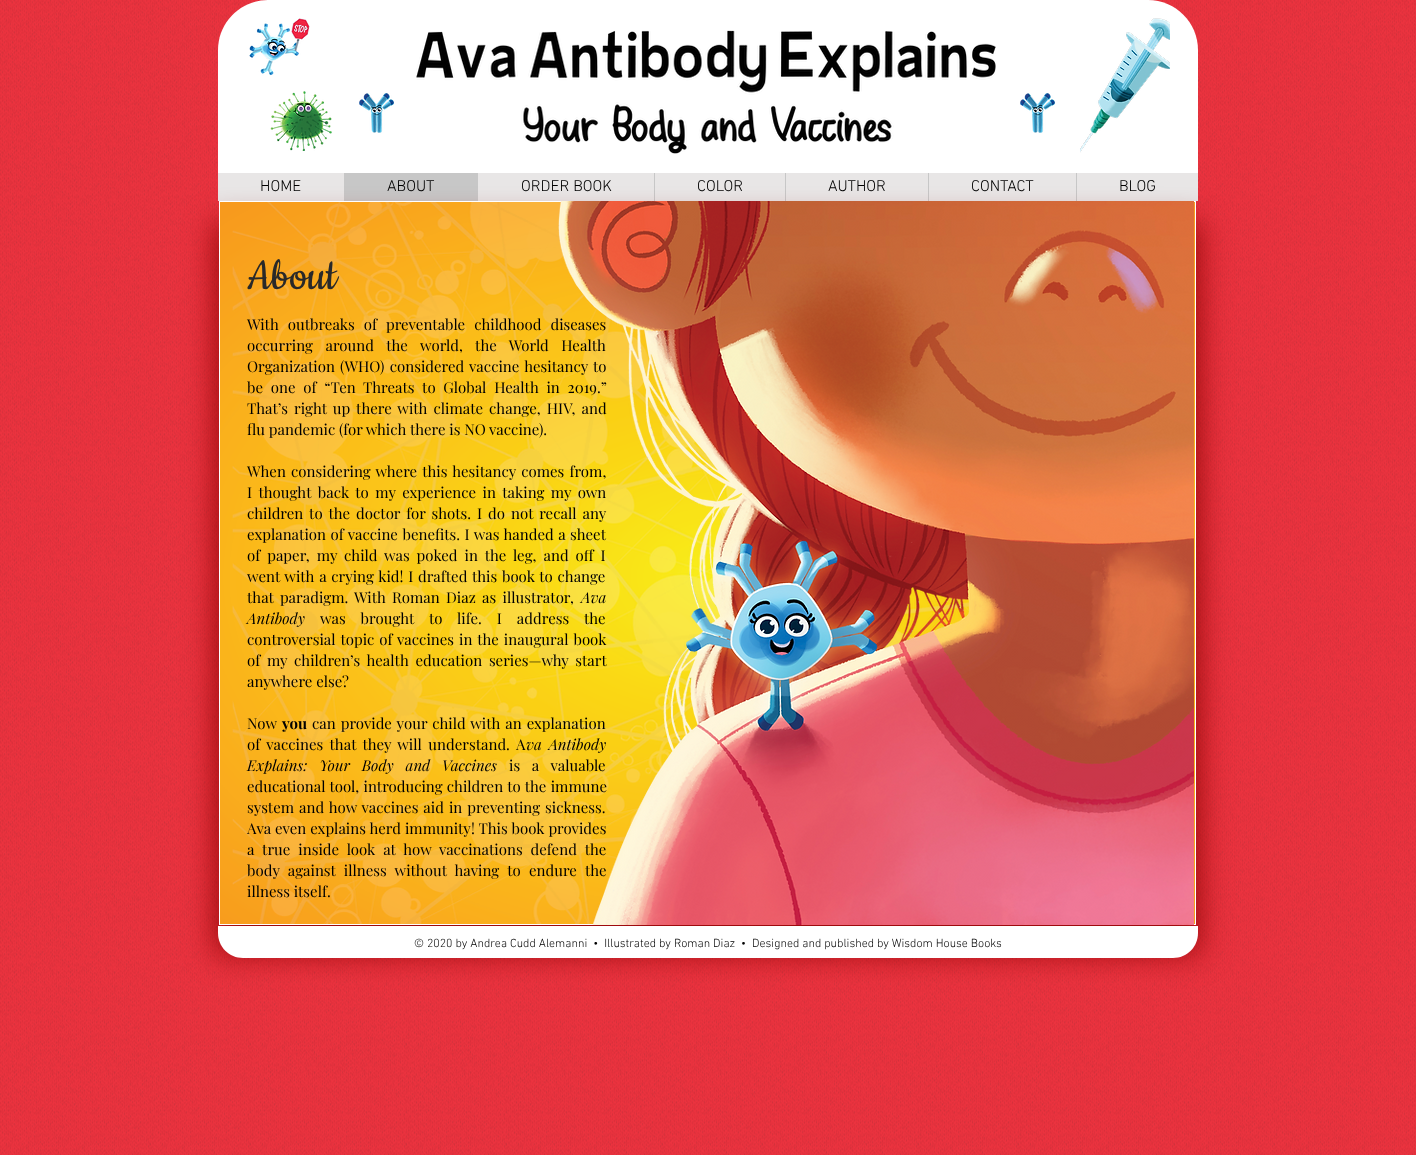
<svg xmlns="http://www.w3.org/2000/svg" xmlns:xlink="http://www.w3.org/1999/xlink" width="1416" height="1155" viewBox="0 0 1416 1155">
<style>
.cls-1{font:300 16px 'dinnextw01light';fill:#000000}
.cls-2{font:50px Cookie;fill:#292929}
.cls-3{font:15px Playfair Display;fill:#000000}
.cls-4{font:italic 15px Playfair Display;fill:#000000}
.cls-5{font:bold 15px Playfair Display;fill:#000000}
.cls-6{font:300 12px 'dinnextw01light';fill:#000000}
</style>
<rect width="100%" height="100%" fill="#eb333f"/>
<image xlink:href="image0.png" x="0" y="0" width="1416" height="1155"/>
<path fill="#ffffff" d="M268 0H1148C1175.5 0 1198 22.5 1198 50V201H218V50C218 22.5 240.5 0 268 0Z"/>
<image xlink:href="image1.png" x="249" y="18" width="61" height="58"/>
<image xlink:href="image2.png" x="416" y="30" width="580" height="124"/>
<image xlink:href="image3.png" x="1080" y="18" width="90" height="135"/>
<image xlink:href="image4.png" x="270" y="91" width="62" height="60"/>
<image xlink:href="image5.png" x="359" y="93" width="35" height="40"/>
<image xlink:href="image5.png" x="1020" y="93" width="35" height="40"/>
<rect fill="#e8e6e6" x="218" y="173" width="980" height="28"/>
<rect fill="#c7c7c7" x="344" y="173" width="134" height="28"/>
<rect fill="#c7c7c7" x="654" y="173" width="1" height="28"/>
<rect fill="#c7c7c7" x="785" y="173" width="1" height="28"/>
<rect fill="#c7c7c7" x="928" y="173" width="1" height="28"/>
<rect fill="#c7c7c7" x="1076" y="173" width="1" height="28"/>
<rect fill="#8b0000" fill-opacity="0.8" filter="blur(15px)" x="215" y="222" width="985" height="732"/>
<rect fill="#ffffff" x="219" y="201" width="977" height="724"/>
<image xlink:href="image6.png" x="220" y="202" width="975" height="722"/>
<image xlink:href="image7.png" x="558" y="201" width="636" height="724"/>
<path fill="#ffffff" d="M218 926H1198V933C1198 947 1187 958 1173 958H243C229 958 218 947 218 933Z"/>
<text class="cls-1" x="260" y="191">HOME</text>
<text class="cls-1" x="387" y="191">ABOUT</text>
<text class="cls-1" x="521" y="191">ORDER BOOK</text>
<text class="cls-1" x="697" y="191">COLOR</text>
<text class="cls-1" x="828" y="191">AUTHOR</text>
<text class="cls-1" x="971" y="191">CONTACT</text>
<text class="cls-1" x="1119" y="191">BLOG</text>
<text class="cls-2" x="247" y="289">About</text>
<text class="cls-3"><tspan x="247" y="330" word-spacing="5.25">With outbreaks of preventable childhood diseases</tspan><tspan x="247" y="351" word-spacing="8.75">occurring around the world, the World Health</tspan><tspan x="247" y="372" word-spacing="1.5">Organization (WHO) considered vaccine hesitancy to</tspan><tspan x="247" y="393" word-spacing="4">be one of “Ten Threats to Global Health in 2019.”</tspan><tspan x="247" y="414" word-spacing="2.25">That’s right up there with climate change, HIV, and</tspan><tspan x="247" y="435">flu pandemic (for which there is NO vaccine).</tspan></text>
<text class="cls-3"><tspan x="247" y="477" word-spacing="1.5">When considering where this hesitancy comes from,</tspan><tspan x="247" y="498" word-spacing="2.75">I thought back to my experience in taking my own</tspan><tspan x="247" y="519" word-spacing="2.25">children to the doctor for shots. I do not recall any</tspan><tspan x="247" y="540" word-spacing="0.75">explanation of vaccine benefits. I was handed a sheet</tspan><tspan x="247" y="561" word-spacing="3.25">of paper, my child was poked in the leg, and off I</tspan><tspan x="247" y="582" word-spacing="1">went with a crying kid! I drafted this book to change</tspan><tspan x="247" y="603" word-spacing="2.5">that paradigm. With Roman Diaz as illustrator,</tspan></text>
<text class="cls-4" x="581" y="603">Ava</text>
<text class="cls-4" x="247" y="624">Antibody</text>
<text class="cls-3" x="320" y="624" word-spacing="11.25">was brought to life. I address the</text>
<text class="cls-3"><tspan x="247" y="645" word-spacing="1.25">controversial topic of vaccines in the inaugural book</tspan><tspan x="247" y="666" word-spacing="3">of my children’s health education series—why start</tspan><tspan x="247" y="687">anywhere else?</tspan></text>
<text class="cls-3" x="247" y="729">Now</text>
<text class="cls-5" x="282" y="729">you</text>
<text class="cls-3" x="312" y="729" word-spacing="1.25">can provide your child with an explanation</text>
<text class="cls-3" x="247" y="750" word-spacing="2.75">of vaccines that they will understand. A</text>
<text class="cls-4" x="526" y="750" word-spacing="2.75">va Antibody</text>
<text class="cls-4" x="247" y="771" word-spacing="8">Explains: Your Body and Vaccines</text>
<text class="cls-3" x="509" y="771" word-spacing="8">is a valuable</text>
<text class="cls-3"><tspan x="247" y="792" word-spacing="0.5">educational tool, introducing children to the immune</tspan><tspan x="247" y="813" word-spacing="1.25">system and how vaccines aid in preventing sickness.</tspan><tspan x="247" y="834" word-spacing="0.25">Ava even explains herd immunity! This book provides</tspan><tspan x="247" y="855" word-spacing="4.25">a true inside look at how vaccinations defend the</tspan><tspan x="247" y="876" word-spacing="4.5">body against illness without having to endure the</tspan><tspan x="247" y="897">illness itself.</tspan></text>
<text class="cls-6" xml:space="preserve" x="414" y="947">© 2020 by Andrea Cudd Alemanni  •  Illustrated by Roman Diaz  •  Designed and published by Wisdom House Books</text>
</svg>
